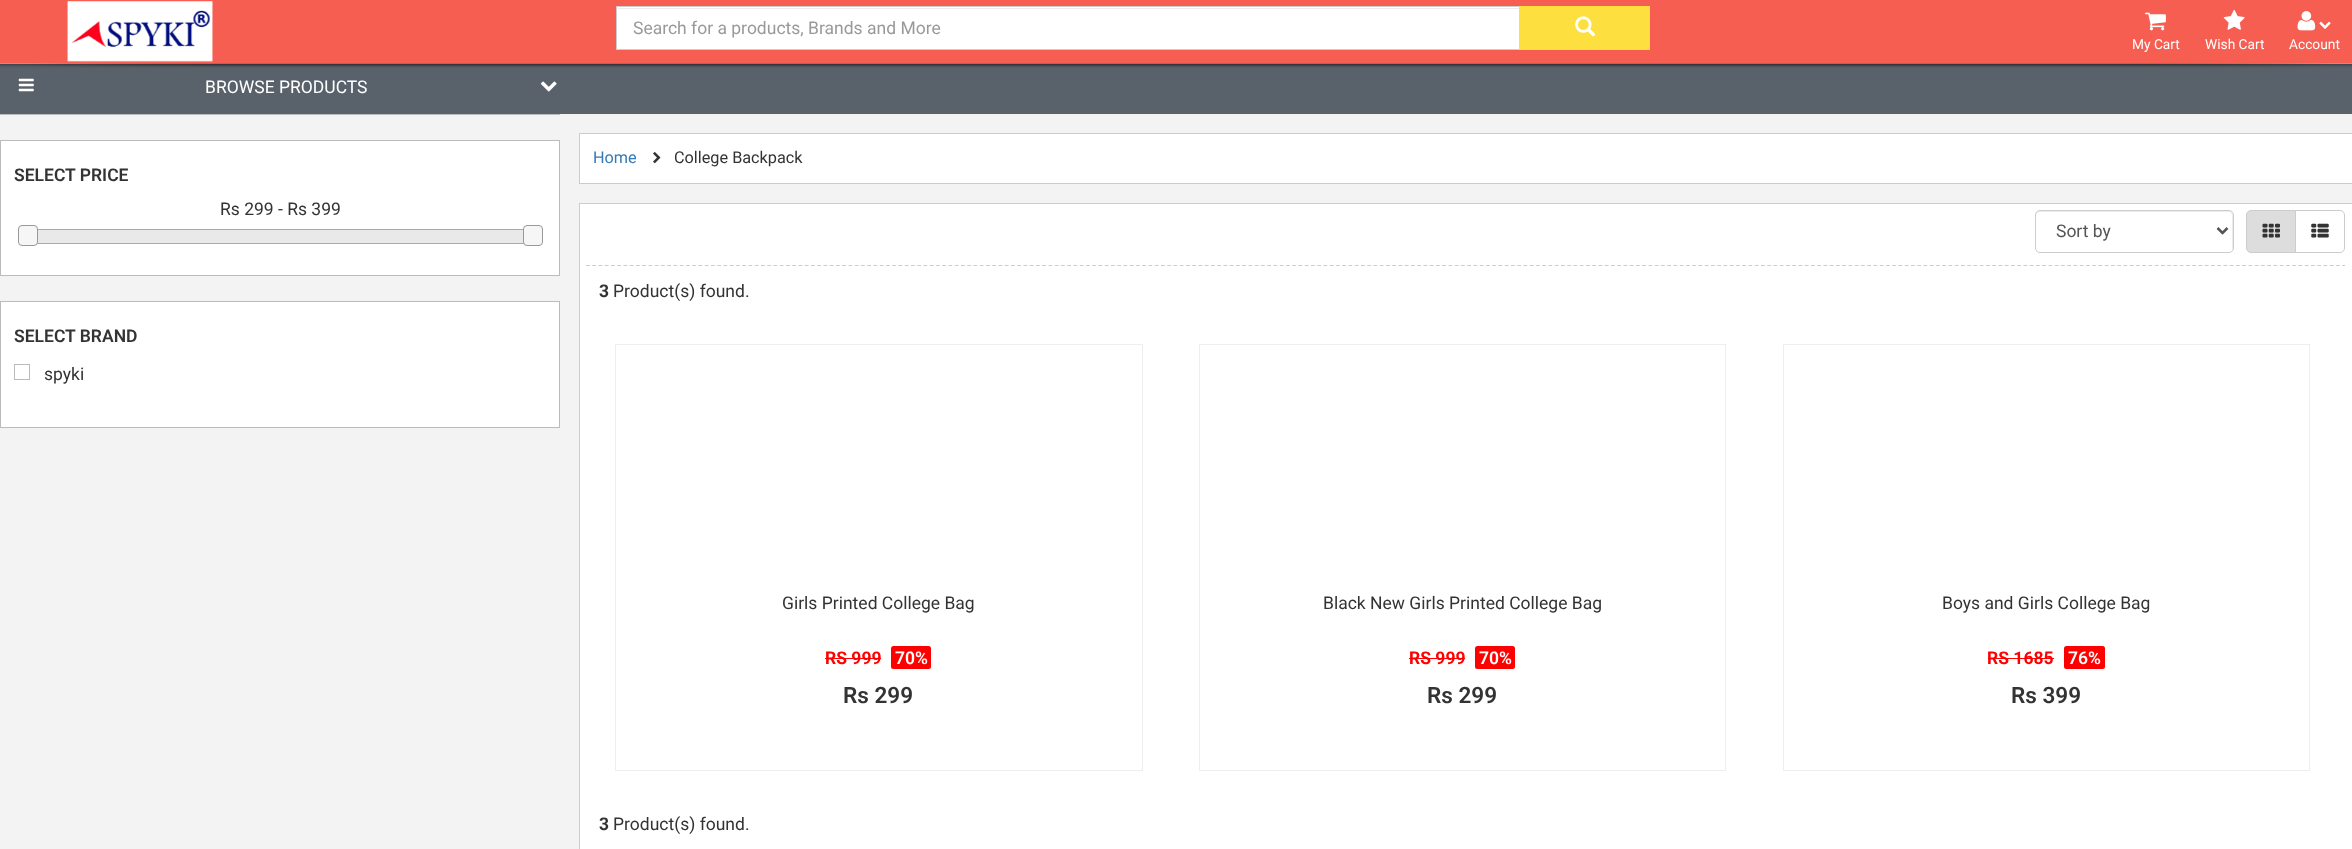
<svg xmlns="http://www.w3.org/2000/svg" xmlns:xlink="http://www.w3.org/1999/xlink" width="2352" height="849" viewBox="0 0 2352 849">
<style>
.cls-1{font:17.5px Roboto;fill:#999999}
.cls-2{font:13.75px Roboto;fill:#ffffff}
.cls-3{font:17.5px Roboto;fill:#ffffff}
.cls-4{font:600 17.5px Roboto;fill:#333333}
.cls-5{font:17.5px Roboto;fill:#333333}
.cls-6{font:16.25px Roboto;fill:#337ab7}
.cls-7{font:16.25px Roboto;fill:#333333}
.cls-8{font:17.5px Roboto;fill:#555555}
.cls-9{font:bold 17.5px Roboto;fill:#333333}
.cls-10{font:bold 17.5px Roboto;fill:#ff0000}
.cls-11{font:600 17.5px Roboto;fill:#ffffff}
.cls-12{font:600 22.5px Roboto;fill:#333333}
</style>
<rect width="100%" height="100%" fill="#f3f3f3"/>
<rect fill="#59616a" x="0" y="64" width="2352" height="50"/>
<image xlink:href="image0.png" x="0" y="0" width="2352" height="68"/>
<image xlink:href="image1.png" x="67" y="1" width="146" height="61"/>
<rect fill="#ffffff" x="617" y="7" width="902" height="42"/>
<rect fill="#ececec" x="618" y="8" width="901" height="1"/>
<rect fill="none" stroke="#cccccc" x="616.5" y="6.5" width="984" height="43"/>
<rect fill="#fddf3f" x="1519" y="6" width="131" height="44"/>
<image xlink:href="image2.png" x="1575" y="16" width="21" height="21"/>
<image xlink:href="image3.png" x="2145" y="12" width="21" height="19"/>
<image xlink:href="image4.png" x="2223" y="9" width="22" height="21"/>
<image xlink:href="image5.png" x="2297" y="11" width="19" height="20"/>
<image xlink:href="image6.png" x="2319" y="21" width="12" height="8"/>
<image xlink:href="image7.png" x="18" y="78" width="16" height="14"/>
<image xlink:href="image8.png" x="540" y="81" width="17" height="11"/>
<rect fill="#bbbbbb" x="0" y="114" width="560" height="1"/>
<rect fill="#ffffff" stroke="#bbbbbb" x="0.5" y="140.5" width="559" height="135"/>
<rect fill="none" stroke="#aaaaaa" x="26.5" y="229.5" width="507" height="14"/>
<rect fill="#e9e9e9" x="37" y="230" width="487" height="13"/>
<rect fill="#f6f6f6" stroke="#999999" x="18.5" y="225.5" width="19" height="20" rx="3.5"/>
<rect fill="#f6f6f6" stroke="#999999" x="523.5" y="225.5" width="19" height="20" rx="3.5"/>
<rect fill="#ffffff" stroke="#bbbbbb" x="0.5" y="301.5" width="559" height="126"/>
<rect fill="none" stroke="#bababa" x="14.5" y="364.5" width="15" height="15"/>
<rect fill="#ffffff" stroke="#cccccc" x="579.5" y="133.5" width="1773" height="50"/>
<image xlink:href="image9.png" x="653" y="152" width="8" height="12"/>
<rect fill="#ffffff" stroke="#cccccc" x="579.5" y="203.5" width="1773" height="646"/>
<path fill="none" stroke="#cccccc" stroke-width="1.2" stroke-dasharray="3.75 2.5" d="M586 265.5H2345"/>
<path fill="#ececec" d="M2040 212H2229C2231 212 2232 214 2232 216V250C2233 249 2233 248 2233 247V215C2233 213 2231 211 2229 211H2040C2038 211 2036 213 2036 215V216C2036 214 2038 212 2040 212Z"/>
<rect fill="none" stroke="#cccccc" x="2035.5" y="210.5" width="198" height="42" rx="4.5"/>
<path fill="none" stroke="#555555" stroke-width="2.5" d="M2217.5 228L2222.5 233L2227.5 228"/>
<path fill="#dddddd" stroke="#cccccc" d="M2251 210.5H2295.5V252.5H2251C2248.5 252.5 2246.5 250.5 2246.5 248V215C2246.5 212.5 2248.5 210.5 2251 210.5Z"/>
<image xlink:href="image10.png" x="2262" y="223" width="18" height="15"/>
<path fill="#ffffff" stroke="#cccccc" d="M2295.5 210.5H2340C2342.5 210.5 2344.5 212.5 2344.5 215V248C2344.5 250.5 2342.5 252.5 2340 252.5H2295.5Z"/>
<image xlink:href="image11.png" x="2311" y="223" width="18" height="15"/>
<rect fill="none" stroke="#eeeeee" x="615.5" y="344.5" width="527" height="426"/>
<rect fill="#ff0000" x="825" y="658" width="56" height="1"/>
<rect fill="#ff0000" x="891" y="646" width="40" height="23" rx="2.5"/>
<rect fill="none" stroke="#eeeeee" x="1199.5" y="344.5" width="526" height="426"/>
<rect fill="#ff0000" x="1409" y="658" width="56" height="1"/>
<rect fill="#ff0000" x="1475" y="646" width="40" height="23" rx="2.5"/>
<rect fill="none" stroke="#eeeeee" x="1783.5" y="344.5" width="526" height="426"/>
<rect fill="#ff0000" x="1988" y="658" width="66" height="1"/>
<rect fill="#ff0000" x="2064" y="646" width="41" height="23" rx="2.5"/>
<text class="cls-1" x="633" y="34">Search for a products, Brands and More</text>
<text class="cls-2" x="2132" y="49">My Cart</text>
<text class="cls-2" x="2205" y="49">Wish Cart</text>
<text class="cls-2" x="2289" y="49">Account</text>
<text class="cls-3" x="205" y="93">BROWSE PRODUCTS</text>
<text class="cls-4" x="14" y="181">SELECT PRICE</text>
<text class="cls-5" x="220" y="215">Rs 299 - Rs 399</text>
<text class="cls-4" x="14" y="342">SELECT BRAND</text>
<text class="cls-5" x="44" y="380">spyki</text>
<text class="cls-6" x="593" y="163">Home</text>
<text class="cls-7" x="674" y="163">College Backpack</text>
<text class="cls-8" x="2056" y="237">Sort by</text>
<text class="cls-9" x="599" y="297">3</text>
<text class="cls-5" x="613" y="297">Product(s) found.</text>
<text class="cls-5" x="782" y="609">Girls Printed College Bag</text>
<text class="cls-10" x="825" y="664">RS 999</text>
<text class="cls-11" x="895" y="664">70%</text>
<text class="cls-12" x="843" y="703">Rs 299</text>
<text class="cls-5" x="1323" y="609">Black New Girls Printed College Bag</text>
<text class="cls-10" x="1409" y="664">RS 999</text>
<text class="cls-11" x="1479" y="664">70%</text>
<text class="cls-12" x="1427" y="703">Rs 299</text>
<text class="cls-5" x="1942" y="609">Boys and Girls College Bag</text>
<text class="cls-10" x="1987" y="664">RS 1685</text>
<text class="cls-11" x="2068" y="664">76%</text>
<text class="cls-12" x="2011" y="703">Rs 399</text>
<text class="cls-9" x="599" y="830">3</text>
<text class="cls-5" x="613" y="830">Product(s) found.</text>
</svg>
